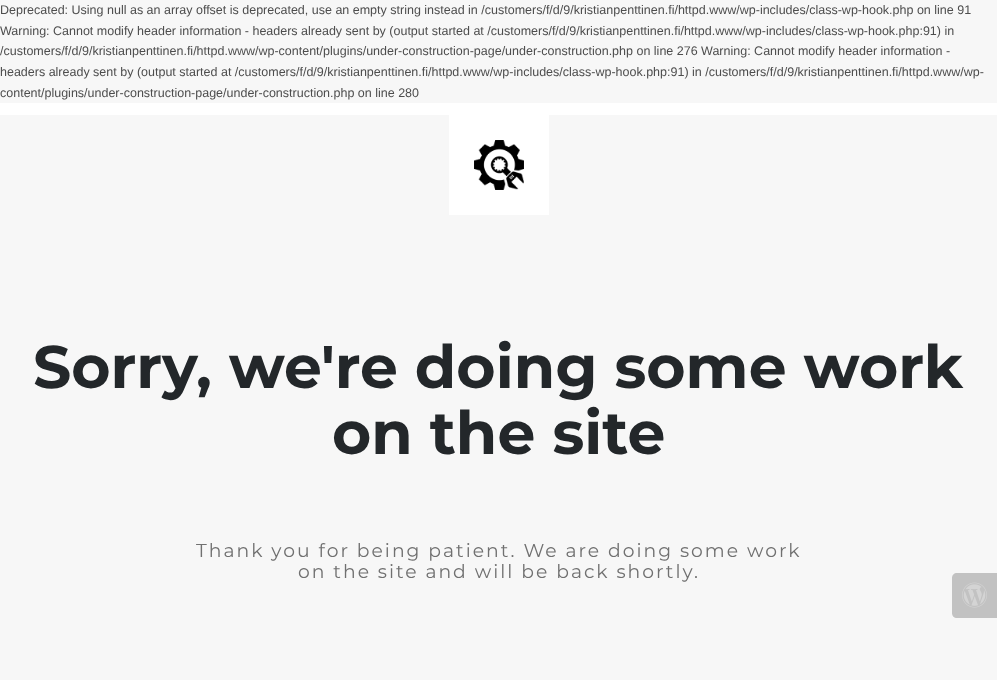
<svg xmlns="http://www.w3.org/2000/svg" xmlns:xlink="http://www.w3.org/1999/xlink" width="997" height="680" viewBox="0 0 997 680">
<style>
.cls-1{font:12.5px Liberation Sans;fill:#4d4d4d}
.cls-2{font:100 60px Montserrat;fill:#23272a}
.cls-3{font:100 18.75px 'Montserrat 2';letter-spacing:2px;fill:#707070}
</style>
<rect width="100%" height="100%" fill="#f7f7f7"/>
<rect fill="#ffffff" x="0" y="103" width="997" height="12"/>
<rect fill="#ffffff" x="449" y="115" width="100" height="100"/>
<image xlink:href="image0.png" x="474" y="140" width="50" height="50"/>
<path fill="#c2c2c2" d="M957 573H997V618H957C954 618 952 616 952 613V578C952 575 954 573 957 573Z"/>
<image xlink:href="image1.png" x="962" y="582" width="25" height="26"/>
<text class="cls-1"><tspan x="0" y="14">Deprecated: Using null as an array offset is deprecated, use an empty string instead in /customers/f/d/9/kristianpenttinen.fi/httpd.www/wp-includes/class-wp-hook.php on line 91</tspan><tspan x="0" y="35">Warning: Cannot modify header information - headers already sent by (output started at /customers/f/d/9/kristianpenttinen.fi/httpd.www/wp-includes/class-wp-hook.php:91) in</tspan><tspan x="0" y="55">/customers/f/d/9/kristianpenttinen.fi/httpd.www/wp-content/plugins/under-construction-page/under-construction.php on line 276 Warning: Cannot modify header information -</tspan><tspan x="0" y="76">headers already sent by (output started at /customers/f/d/9/kristianpenttinen.fi/httpd.www/wp-includes/class-wp-hook.php:91) in /customers/f/d/9/kristianpenttinen.fi/httpd.www/wp-</tspan><tspan x="0" y="97">content/plugins/under-construction-page/under-construction.php on line 280</tspan></text>
<text class="cls-2" x="33" y="388">Sorry, we're doing some work</text>
<text class="cls-2" x="332" y="454">on the site</text>
<text class="cls-3" x="196" y="557">Thank you for being patient. We are doing some work</text>
<text class="cls-3" x="298" y="578">on the site and will be back shortly.</text>
</svg>
